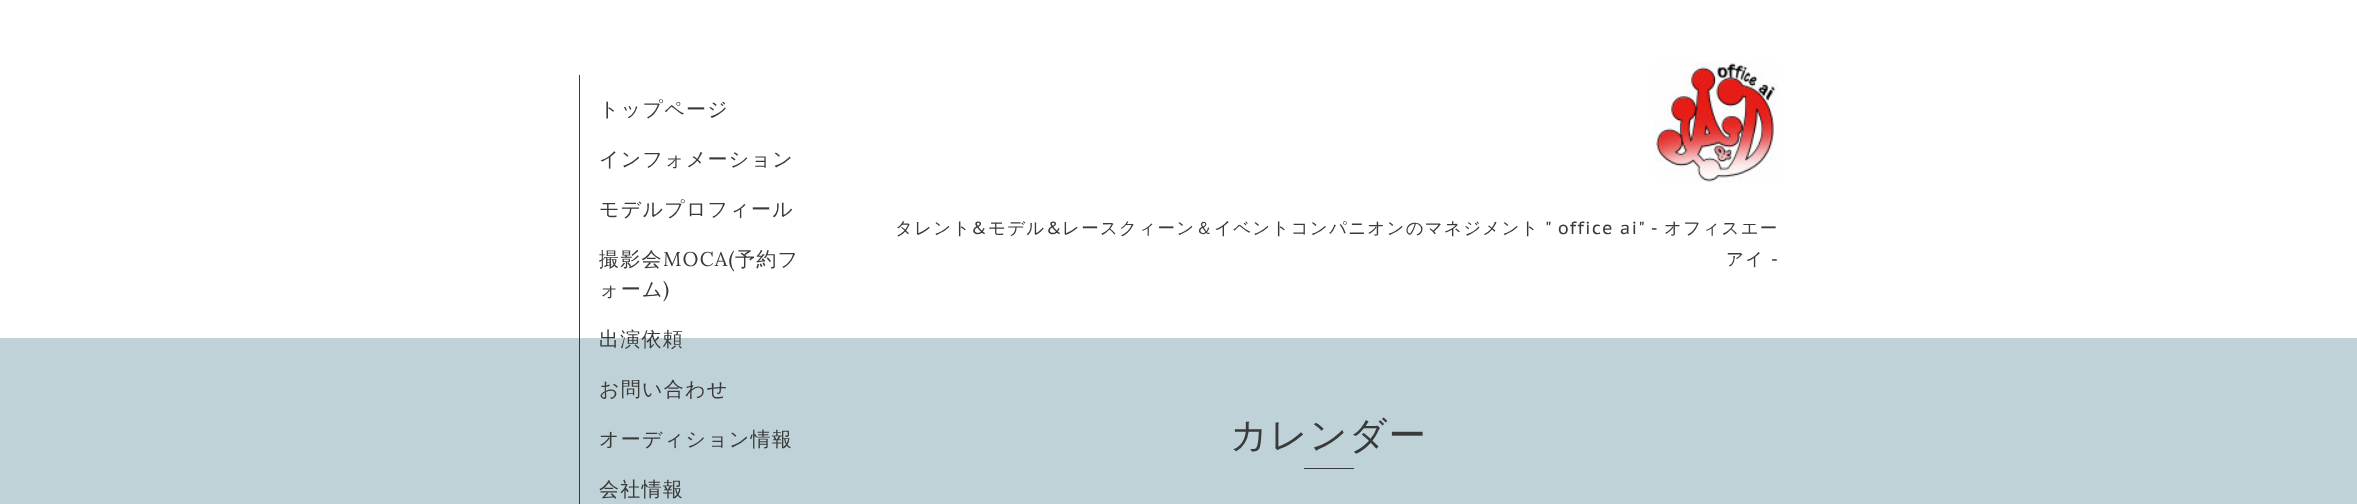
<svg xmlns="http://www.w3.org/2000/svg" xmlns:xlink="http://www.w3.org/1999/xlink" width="2357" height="504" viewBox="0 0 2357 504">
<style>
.cls-1{font:500 20px WenQuanYi Zen Hei;letter-spacing:1.25px;fill:#3a3a3a}
.cls-2{font:20px Lora;letter-spacing:1.25px;fill:#3a3a3a}
.cls-3{font:500 17.5px WenQuanYi Zen Hei;letter-spacing:1.25px;fill:#3a3a3a}
.cls-4{font:17.5px PT Sans Caption;letter-spacing:1.25px;fill:#3a3a3a}
.cls-5{font:500 37.5px WenQuanYi Zen Hei;letter-spacing:1.25px;fill:#3a3a3a}
</style>
<rect width="100%" height="100%" fill="#ffffff"/>
<rect fill="#bfd2d8" x="0" y="338" width="2357" height="166"/>
<rect fill="#3a3a3a" x="579" y="75" width="1" height="429"/>
<image xlink:href="image0.png" x="1654" y="62" width="125" height="121"/>
<rect fill="#3a3a3a" x="1304" y="468" width="50" height="1"/>
<text class="cls-1" x="599" y="116">トップページ</text>
<text class="cls-1" x="599" y="166">インフォメーション</text>
<text class="cls-1" x="599" y="216">モデルプロフィール</text>
<text class="cls-1" x="599" y="266">撮影会</text>
<text class="cls-2" x="663" y="266">MOCA(</text>
<text class="cls-1" x="735" y="266">予約フ</text>
<text class="cls-1" x="599" y="296">ォーム</text>
<text class="cls-2" x="663" y="296">)</text>
<text class="cls-1" x="599" y="346">出演依頼</text>
<text class="cls-1" x="599" y="396">お問い合わせ</text>
<text class="cls-1" x="599" y="446">オーディション情報</text>
<text class="cls-1" x="599" y="496">会社情報</text>
<text class="cls-3" x="895" y="234">タレント</text>
<text class="cls-4" x="971" y="234">&amp;</text>
<text class="cls-3" x="988" y="234">モデル</text>
<text class="cls-4" x="1046" y="234">&amp;</text>
<text class="cls-3" x="1062" y="234">レースクィーン＆イベントコンパニオンのマネジメント</text>
<text class="cls-4" x="1545" y="234">" office ai" -</text>
<text class="cls-3" x="1664" y="234">オフィスエー</text>
<text class="cls-3" x="1726" y="265">アイ</text>
<text class="cls-4" x="1771" y="265">-</text>
<text class="cls-5" x="1230" y="448">カレンダー</text>
</svg>
